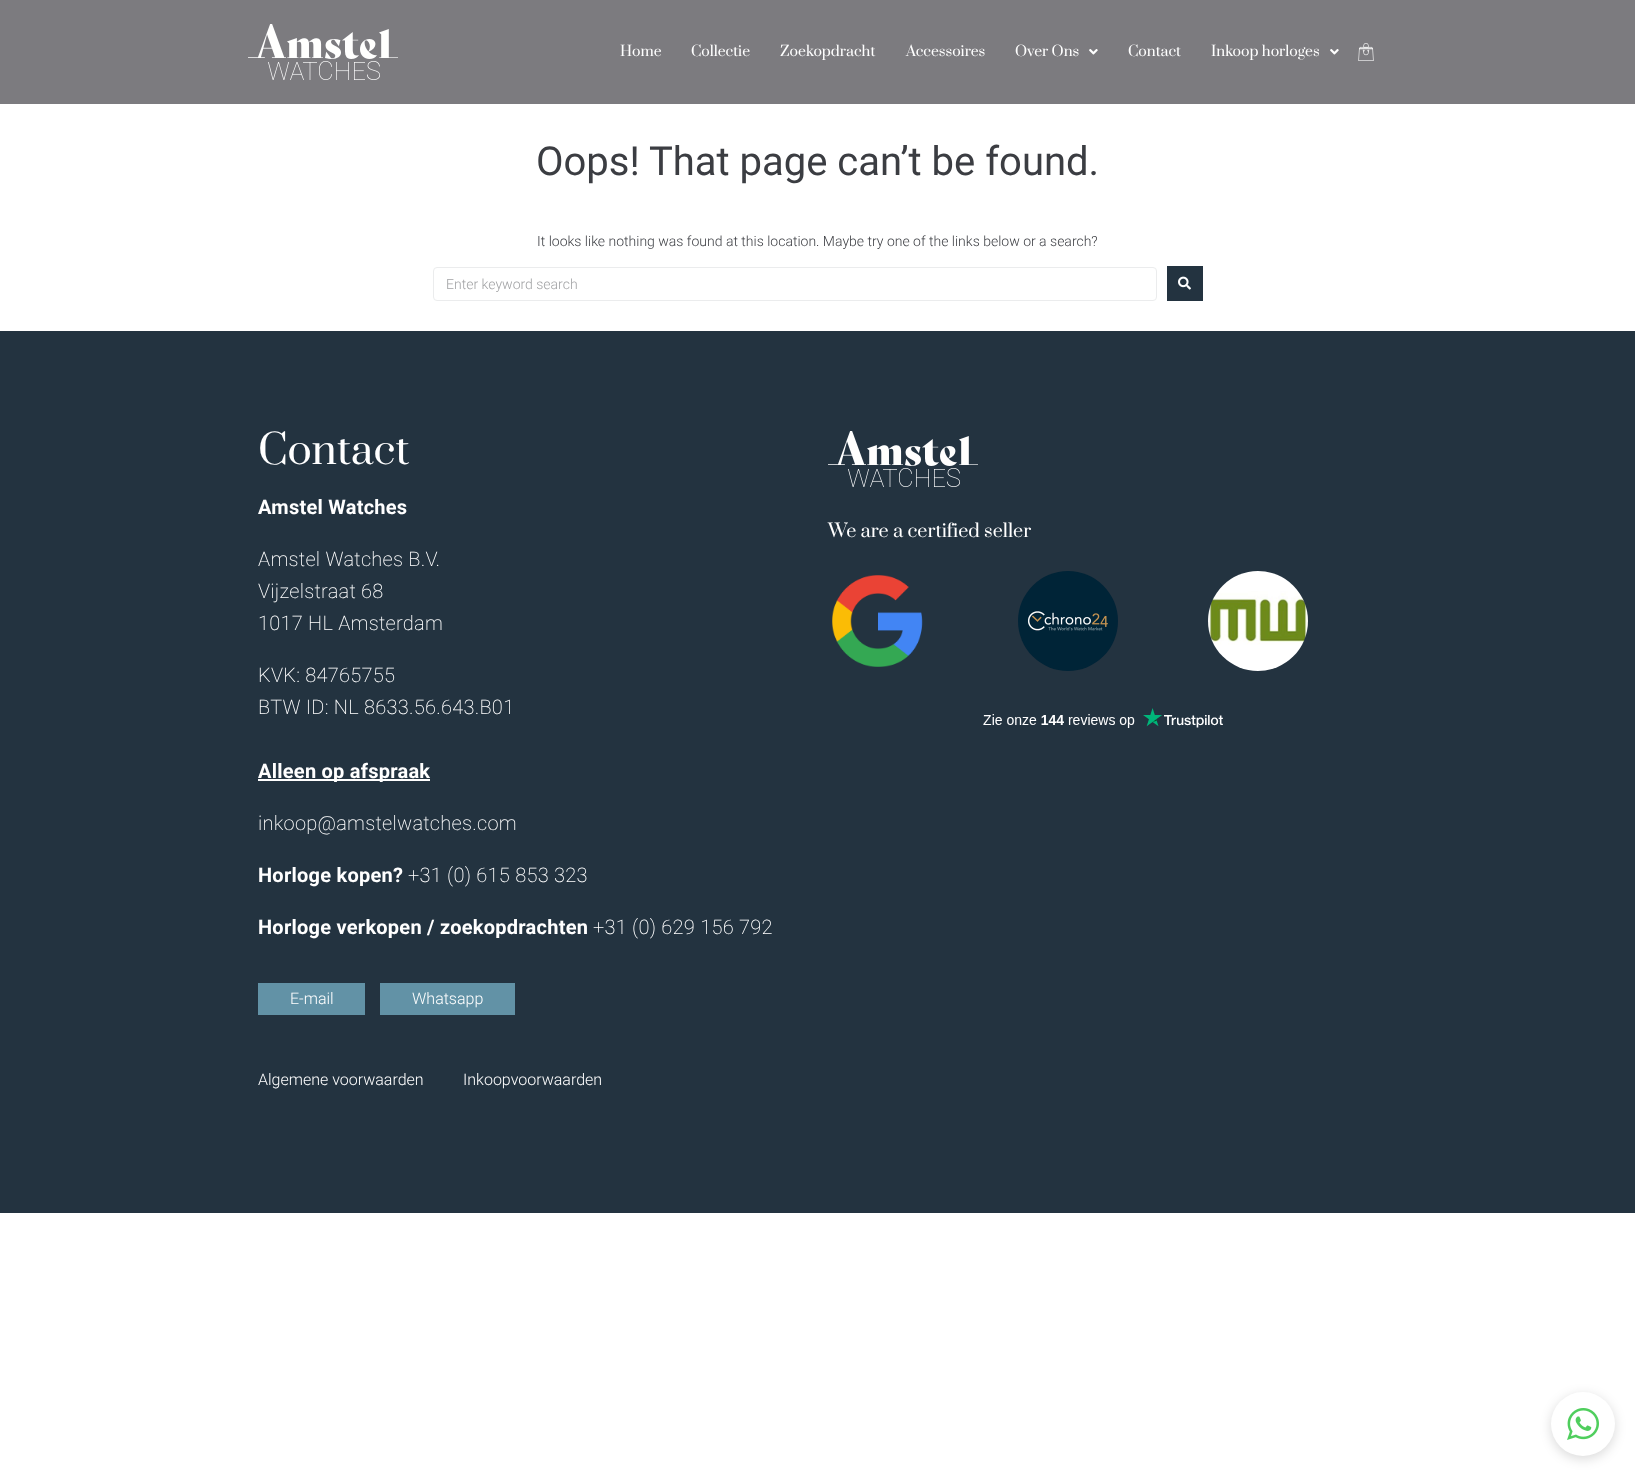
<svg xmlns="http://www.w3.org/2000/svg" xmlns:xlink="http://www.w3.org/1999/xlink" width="1635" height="1476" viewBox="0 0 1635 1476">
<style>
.cls-1{font:14px Prata;fill:#ffffff}
.cls-2{font:40px Roboto;fill:#3b3d42}
.cls-3{font:300 14px Roboto;fill:#3b3d42}
.cls-4{font:300 14px Roboto;fill:#a1a2a4}
.cls-5{font:40px Prata;fill:#ffffff}
.cls-6{font:bold 20px Roboto;letter-spacing:0.25px;fill:#ffffff}
.cls-7{font:200 20px Roboto;letter-spacing:0.25px;fill:#ffffff}
.cls-8{font:300 16px Roboto;fill:#ffffff}
.cls-9{font:18px Prata;fill:#ffffff}
</style>
<rect width="100%" height="100%" fill="#ffffff"/>
<rect fill="#7c7b7f" x="0" y="0" width="1635" height="104"/>
<image xlink:href="image0.png" x="248" y="24" width="150" height="56"/>
<image xlink:href="image1.png" x="1089" y="49" width="9" height="6"/>
<image xlink:href="image1.png" x="1330" y="49" width="9" height="6"/>
<image xlink:href="image2.png" x="1358" y="43" width="16" height="18"/>
<rect fill="none" stroke="#ebeced" x="433.5" y="267.5" width="723" height="33" rx="3.5"/>
<rect fill="#233340" x="1167" y="266" width="36" height="35"/>
<image xlink:href="image3.png" x="1178" y="276" width="13" height="14"/>
<rect fill="#233340" x="0" y="331" width="1635" height="882"/>
<rect fill="#ffffff" x="258" y="779" width="172" height="2"/>
<rect fill="#6292a6" x="258" y="983" width="107" height="32"/>
<rect fill="#6292a6" x="380" y="983" width="135" height="32"/>
<image xlink:href="image4.png" x="828" y="431" width="150" height="56"/>
<image xlink:href="image5.png" x="832" y="575" width="91" height="92"/>
<image xlink:href="image6.png" x="1018" y="571" width="100" height="100"/>
<image xlink:href="image7.png" x="1208" y="571" width="100" height="100"/>
<image xlink:href="image8.png" x="983" y="708" width="240" height="20"/>
<rect fill="#000000" fill-opacity="0.15" filter="blur(6px)" x="1551" y="1395" width="64" height="64" rx="32"/>
<circle fill="#ffffff" cx="1583" cy="1424" r="32"/>
<image xlink:href="image9.png" x="1567" y="1408" width="32" height="32"/>
<text class="cls-1" x="620" y="56">Home</text>
<text class="cls-1" x="691" y="56">Collectie</text>
<text class="cls-1" x="780" y="56">Zoekopdracht</text>
<text class="cls-1" x="906" y="56">Accessoires</text>
<text class="cls-1" x="1015" y="56">Over Ons</text>
<text class="cls-1" x="1128" y="56">Contact</text>
<text class="cls-1" x="1211" y="56">Inkoop horloges</text>
<text class="cls-2" x="536" y="175">Oops! That page can’t be found.</text>
<text class="cls-3" x="537" y="246">It looks like nothing was found at this location. Maybe try one of the links below or a search?</text>
<text class="cls-4" x="446" y="289">Enter keyword search</text>
<text class="cls-5" x="258" y="464">Contact</text>
<text class="cls-6" x="258" y="514">Amstel Watches</text>
<text class="cls-7"><tspan x="258" y="566">Amstel Watches B.V.</tspan><tspan x="258" y="598">Vijzelstraat 68</tspan><tspan x="258" y="630">1017 HL Amsterdam</tspan></text>
<text class="cls-7"><tspan x="258" y="682">KVK: 84765755</tspan><tspan x="258" y="714">BTW ID: NL 8633.56.643.B01</tspan></text>
<text class="cls-6" x="258" y="778">Alleen op afspraak</text>
<text class="cls-7" x="258" y="830">inkoop@amstelwatches.com</text>
<text class="cls-6" x="258" y="882">Horloge kopen?</text>
<text class="cls-7" x="408" y="882">+31 (0) 615 853 323</text>
<text class="cls-6" x="258" y="934">Horloge verkopen / zoekopdrachten</text>
<text class="cls-7" x="593" y="934">+31 (0) 629 156 792</text>
<text class="cls-8" x="290" y="1004">E-mail</text>
<text class="cls-8" x="412" y="1004">Whatsapp</text>
<text class="cls-9" x="828" y="537">We are a certified seller</text>
<text class="cls-8" x="258" y="1085">Algemene voorwaarden</text>
<text class="cls-8" x="463" y="1085">Inkoopvoorwaarden</text>
</svg>
